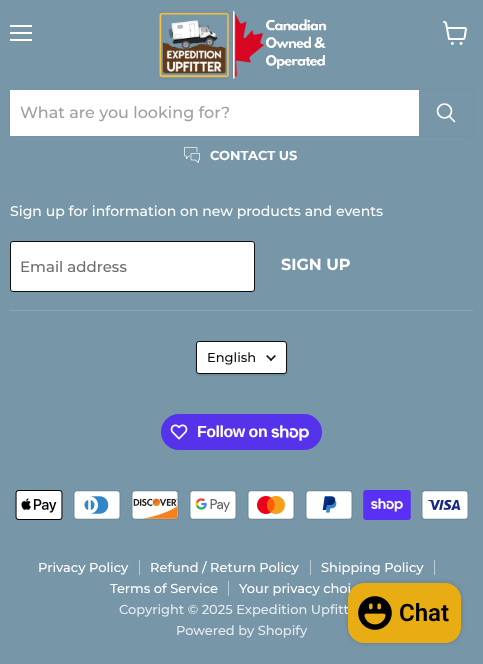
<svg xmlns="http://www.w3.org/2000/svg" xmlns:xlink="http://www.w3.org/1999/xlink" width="483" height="664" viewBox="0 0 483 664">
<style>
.cls-1{font:500 16px Montserrat;fill:#9f9f9f}
.cls-2{font:bold 13px Montserrat;fill:#ffffff}
.cls-3{font:500 14.05px Montserrat;fill:#ffffff}
.cls-4{font:500 15px Montserrat;fill:#6e6e6e}
.cls-5{font:bold 16px Montserrat;fill:#ffffff}
.cls-6{font:500 13px Montserrat;fill:#0e0e0e}
.cls-7{font:bold 16px Liberation Sans;letter-spacing:-0.5px;fill:#ffffff}
.cls-8{font:500 13px Montserrat;fill:#ffffff}
.cls-9{font:500 13px Montserrat;fill:#e4eaee}
.cls-10{font:600 24px Roboto;fill:#000000}
</style>
<rect width="100%" height="100%" fill="#7796a8"/>
<rect fill="#ffffff" x="10" y="25" width="22" height="2"/>
<rect fill="#ffffff" x="10" y="32" width="22" height="2"/>
<rect fill="#ffffff" x="10" y="39" width="22" height="2"/>
<image xlink:href="image0.png" x="443" y="21" width="24" height="24"/>
<image xlink:href="image1.png" x="158" y="10" width="169" height="70"/>
<rect fill="none" stroke="#7992a0" x="9.5" y="89.5" width="464" height="47" rx="3.5"/>
<rect fill="#ffffff" x="10" y="90" width="409" height="46"/>
<path fill="none" stroke="#ffffff" stroke-width="1.7" stroke-linecap="round" d="M454.5 121.5L449.5 116.5"/>
<circle fill="none" stroke="#ffffff" stroke-width="1.7" cx="444.5" cy="111" r="7"/>
<image xlink:href="image2.png" x="184" y="147" width="16" height="16"/>
<rect fill="#8ba6b5" x="10" y="310" width="463" height="1"/>
<rect fill="#ffffff" stroke="#0e0e0e" x="10.5" y="241.5" width="244" height="50" rx="2.5"/>
<rect fill="#000000" fill-opacity="0.15" filter="blur(1px)" x="196" y="342" width="91" height="33" rx="3"/>
<rect fill="#ffffff" stroke="#0e0e0e" x="196.5" y="341.5" width="90" height="32" rx="2.5"/>
<image xlink:href="image3.png" x="266" y="355" width="10" height="6"/>
<rect fill="#5433eb" x="161" y="414" width="161" height="36" rx="18"/>
<image xlink:href="image4.png" x="170" y="424" width="18" height="16"/>
<image xlink:href="image5.png" x="271" y="425" width="38" height="16"/>
<image xlink:href="image6.png" x="15" y="490" width="48" height="30"/>
<image xlink:href="image7.png" x="73" y="490" width="48" height="30"/>
<image xlink:href="image8.png" x="131" y="490" width="48" height="30"/>
<image xlink:href="image9.png" x="189" y="490" width="48" height="30"/>
<image xlink:href="image10.png" x="247" y="490" width="48" height="30"/>
<image xlink:href="image11.png" x="305" y="490" width="48" height="30"/>
<image xlink:href="image12.png" x="363" y="490" width="48" height="30"/>
<image xlink:href="image13.png" x="421" y="490" width="48" height="30"/>
<rect fill="#bbcbd4" x="139" y="560" width="1" height="15"/>
<rect fill="#bbcbd4" x="310" y="560" width="1" height="15"/>
<rect fill="#bbcbd4" x="434" y="560" width="1" height="15"/>
<rect fill="#bbcbd4" x="228" y="581" width="1" height="15"/>
<rect fill="#000000" fill-opacity="0.15" filter="blur(2.5px)" x="348" y="583" width="113" height="60" rx="16"/>
<text class="cls-1" x="20" y="118">What are you looking for?</text>
<text class="cls-2" x="210" y="160">CONTACT US</text>
<text class="cls-3" x="10" y="216">Sign up for information on new products and events</text>
<text class="cls-4" x="20" y="272">Email address</text>
<text class="cls-5" x="281" y="270">SIGN UP</text>
<text class="cls-6" x="207" y="362">English</text>
<text class="cls-7" x="197" y="437">Follow on</text>
<text class="cls-8" x="38" y="572">Privacy Policy</text>
<text class="cls-8" x="150" y="572">Refund / Return Policy</text>
<text class="cls-8" x="321" y="572">Shipping Policy</text>
<text class="cls-8" x="110" y="593">Terms of Service</text>
<text class="cls-8" x="239" y="593">Your privacy choi</text>
<text class="cls-9" x="119" y="614">Copyright © 2025 Expedition Upfitt</text>
<text class="cls-9" x="176" y="635">Powered by Shopify</text>
<rect fill="#e9ad14" x="348" y="583" width="113" height="60" rx="16"/>
<image xlink:href="image14.png" x="358" y="596" width="34" height="34"/>
<text class="cls-10" x="399" y="621">Chat</text>
</svg>
